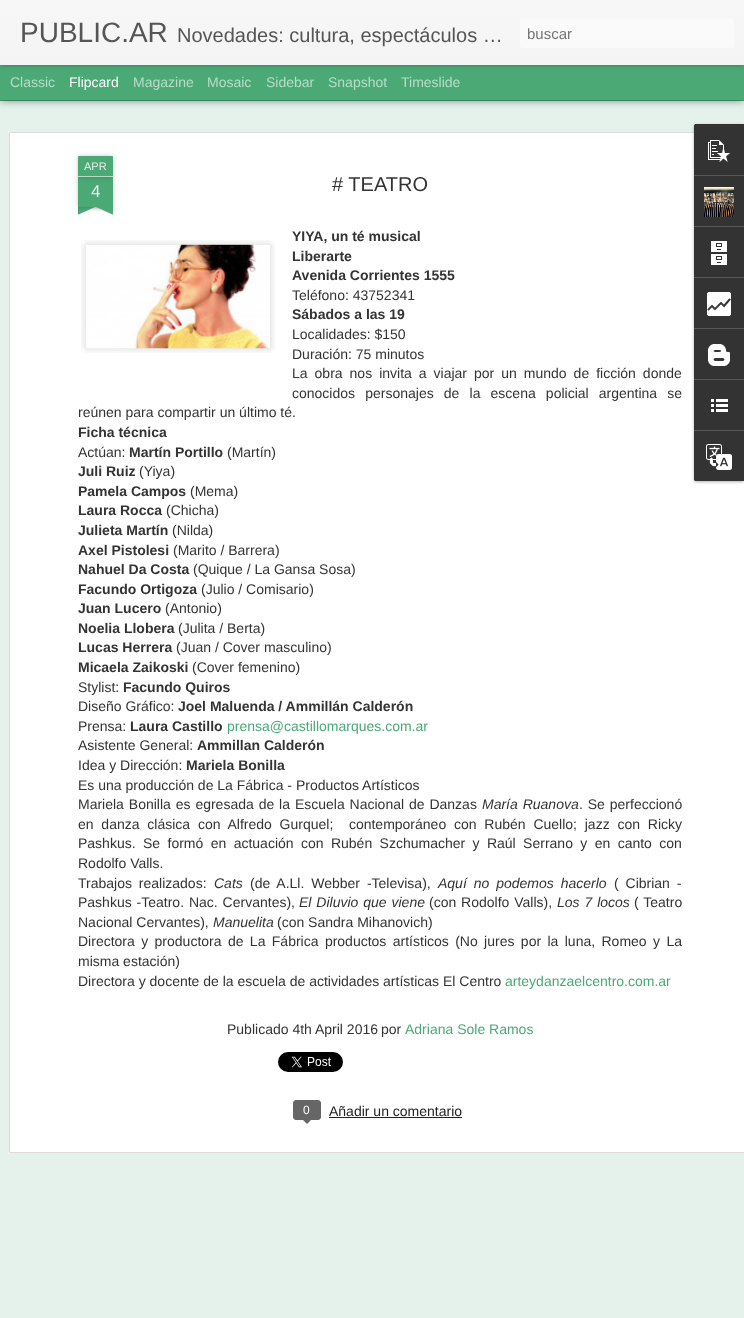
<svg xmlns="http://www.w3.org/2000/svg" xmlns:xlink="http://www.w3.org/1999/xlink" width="744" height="1318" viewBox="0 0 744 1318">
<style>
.cls-1{font:28px Liberation Sans;fill:#555555}
.cls-2{font:20px Liberation Sans;fill:#555555}
.cls-3{font:15px Liberation Sans;fill:#757575}
.cls-4{font:14px Liberation Sans;fill:#b7ddc8}
.cls-5{font:14px Liberation Sans;fill:#ffffff}
.cls-6{font:11px Liberation Sans;fill:#eeeeee}
.cls-7{font:17px Liberation Sans;fill:#eeeeee}
.cls-8{font:20px Liberation Sans;fill:#333333}
.cls-9{font:bold 14px Liberation Sans;fill:#333333}
.cls-10{font:14px Liberation Sans;fill:#333333}
.cls-11{font:14px Liberation Sans;fill:#4ba976}
.cls-12{font:italic 14px Liberation Sans;fill:#333333}
.cls-13{font:12px Liberation Sans;fill:#ffffff}
.cls-14{font:14px Liberation Sans;fill:#222222}
</style>
<defs>
<linearGradient id="g1" gradientUnits="userSpaceOnUse" x1="0" y1="0" x2="0" y2="65"><stop offset="0" stop-color="#f7f7f7"/><stop offset="1" stop-color="#f4f4f4"/></linearGradient>
<clipPath id="clip1"><rect x="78" y="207" width="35" height="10"/></clipPath>
<clipPath id="clip2"><rect x="78" y="207" width="35" height="10"/></clipPath>
</defs>
<rect width="100%" height="100%" fill="#4ba976"/>
<rect fill="#e4f2eb" x="0" y="101" width="744" height="1217"/>
<rect fill="#000000" fill-opacity="0.5" filter="blur(4px)" x="0" y="65" width="744" height="35"/>
<rect fill="#4ba976" x="0" y="65" width="744" height="35"/>
<rect fill="#000000" fill-opacity="0.3" filter="blur(2.5px)" x="0" y="0" width="744" height="65"/>
<rect fill="url(#g1)" x="0" y="0" width="744" height="65"/>
<rect fill="#fafafa" x="520" y="18" width="214" height="30" rx="3"/>
<rect fill="#ffffff" x="8" y="131" width="736" height="1023"/>
<image xlink:href="image0.png" x="8" y="131" width="736" height="1023"/>
<rect fill="#000000" fill-opacity="0.2" filter="blur(2.5px)" x="78" y="177" width="35" height="30"/>
<rect fill="#4ba976" x="78" y="177" width="35" height="30"/>
<rect fill="#000000" fill-opacity="0.2" filter="blur(2.5px)" x="78" y="156" width="35" height="21" rx="1"/>
<path fill="#4ba976" d="M79 156H112C112.5 156 113 156.5 113 157V177H78V157C78 156.5 78.5 156 79 156Z"/>
<rect fill="#b7ddc8" x="78" y="176" width="35" height="1"/>
<g clip-path="url(#clip1)">
<rect fill="#000000" fill-opacity="0.2" filter="blur(2.5px)" x="69" y="197" width="50" height="10"/>
</g>
<g clip-path="url(#clip2)">
<path fill="#4ba976" d="M69 208L115 187L119 196L73 217Z"/>
</g>
<g clip-path="url(#clip1)">
<rect fill="#000000" fill-opacity="0.2" filter="blur(2.5px)" x="72" y="197" width="50" height="10"/>
</g>
<g clip-path="url(#clip2)">
<path fill="#4ba976" d="M76 187L122 208L118 217L72 196Z"/>
</g>
<image xlink:href="image1.png" x="81" y="240" width="194" height="113"/>
<image xlink:href="image2.png" x="87" y="244" width="180" height="105"/>
<image xlink:href="image3.png" x="278" y="1052" width="65" height="20"/>
<rect fill="#666666" stroke="#666666" x="293.5" y="1100.5" width="27" height="19" rx="2.5"/>
<path fill="#666666" d="M302 1119H312L307 1124Z"/>
<rect fill="#222222" x="329" y="1117" width="133" height="1"/>
<rect fill="#000000" fill-opacity="0.3" filter="blur(1.5px)" x="694" y="125" width="50" height="357" rx="2"/>
<path fill="#333333" d="M696 124H744V481H696C695 481 694 480 694 479V126C694 125 695 124 696 124Z"/>
<path fill="#333333" d="M696 124H744V175H694V126C694 125 695 124 696 124Z"/>
<image xlink:href="image4.png" x="708" y="140" width="22" height="22"/>
<rect fill="#585858" x="694" y="175" width="50" height="1"/>
<image xlink:href="image5.png" x="704" y="187" width="30" height="30"/>
<rect fill="#585858" x="694" y="226" width="50" height="1"/>
<image xlink:href="image6.png" x="711" y="241" width="16" height="24"/>
<rect fill="#585858" x="694" y="277" width="50" height="1"/>
<image xlink:href="image7.png" x="707" y="292" width="24" height="24"/>
<rect fill="#585858" x="694" y="328" width="50" height="1"/>
<image xlink:href="image8.png" x="707" y="344" width="23" height="22"/>
<rect fill="#585858" x="694" y="379" width="50" height="1"/>
<image xlink:href="image9.png" x="711" y="399" width="17" height="13"/>
<path fill="#333333" d="M694 430H744V481H696C695 481 694 480 694 479Z"/>
<rect fill="#585858" x="694" y="430" width="50" height="1"/>
<image xlink:href="image10.png" x="706" y="444" width="26" height="26"/>
<text class="cls-1" x="20" y="42">PUBLIC.AR</text>
<text class="cls-2" x="177" y="42">Novedades: cultura, espectáculos …</text>
<text class="cls-3" x="527" y="39">buscar</text>
<text class="cls-4" x="10" y="87">Classic</text>
<text class="cls-5" x="69" y="87">Flipcard</text>
<text class="cls-4" x="133" y="87">Magazine</text>
<text class="cls-4" x="207" y="87">Mosaic</text>
<text class="cls-4" x="266" y="87">Sidebar</text>
<text class="cls-4" x="328" y="87">Snapshot</text>
<text class="cls-4" x="401" y="87">Timeslide</text>
<text class="cls-6" x="84" y="170">APR</text>
<text class="cls-7" x="91" y="197">4</text>
<text class="cls-8" x="332" y="191"># TEATRO</text>
<text class="cls-9"><tspan x="292" y="241">YIYA, un té musical</tspan><tspan x="292" y="261">Liberarte</tspan><tspan x="292" y="280">Avenida Corrientes 1555</tspan></text>
<text class="cls-10" x="292" y="300">Teléfono: 43752341</text>
<text class="cls-9" x="292" y="319">Sábados a las 19</text>
<text class="cls-10"><tspan x="292" y="339">Localidades: $150</tspan><tspan x="292" y="359">Duración: 75 minutos</tspan><tspan x="292" y="378" word-spacing="3.1">La obra nos invita a viajar por un mundo de ficción donde</tspan><tspan x="292" y="398" word-spacing="6.25">conocidos personajes de la escena policial argentina se</tspan></text>
<text class="cls-10" x="78" y="417">reúnen para compartir un último té.</text>
<text class="cls-9" x="78" y="437">Ficha técnica</text>
<text class="cls-10" x="78" y="457">Actúan:</text>
<text class="cls-9" x="129" y="457">Martín Portillo</text>
<text class="cls-10" x="227" y="457">(Martín)</text>
<text class="cls-9" x="78" y="476">Juli Ruiz</text>
<text class="cls-10" x="139" y="476">(Yiya)</text>
<text class="cls-9" x="78" y="496">Pamela Campos</text>
<text class="cls-10" x="190" y="496">(Mema)</text>
<text class="cls-9" x="78" y="515">Laura Rocca</text>
<text class="cls-10" x="166" y="515">(Chicha)</text>
<text class="cls-9" x="78" y="535">Julieta Martín</text>
<text class="cls-10" x="172" y="535">(Nilda)</text>
<text class="cls-9" x="78" y="555">Axel Pistolesi</text>
<text class="cls-10" x="173" y="555">(Marito / Barrera)</text>
<text class="cls-9" x="78" y="574">Nahuel Da Costa</text>
<text class="cls-10" x="193" y="574">(Quique / La Gansa Sosa)</text>
<text class="cls-9" x="78" y="594">Facundo Ortigoza</text>
<text class="cls-10" x="201" y="594">(Julio / Comisario)</text>
<text class="cls-9" x="78" y="613">Juan Lucero</text>
<text class="cls-10" x="165" y="613">(Antonio)</text>
<text class="cls-9" x="78" y="633">Noelia Llobera</text>
<text class="cls-10" x="178" y="633">(Julita / Berta)</text>
<text class="cls-9" x="78" y="652">Lucas Herrera</text>
<text class="cls-10" x="176" y="652">(Juan / Cover masculino)</text>
<text class="cls-9" x="78" y="672">Micaela Zaikoski</text>
<text class="cls-10" x="192" y="672">(Cover femenino)</text>
<text class="cls-10" x="78" y="692">Stylist:</text>
<text class="cls-9" x="123" y="692">Facundo Quiros</text>
<text class="cls-10" x="78" y="711">Diseño Gráfico:</text>
<text class="cls-9" x="178" y="711">Joel Maluenda / Ammillán Calderón</text>
<text class="cls-10" x="78" y="731">Prensa:</text>
<text class="cls-9" x="130" y="731">Laura Castillo</text>
<text class="cls-11" x="227" y="731">prensa@castillomarques.com.ar</text>
<text class="cls-10" x="78" y="750">Asistente General:</text>
<text class="cls-9" x="197" y="750">Ammillan Calderón</text>
<text class="cls-10" x="78" y="770">Idea y Dirección:</text>
<text class="cls-9" x="186" y="770">Mariela Bonilla</text>
<text class="cls-10"><tspan x="78" y="790">Es una producción de La Fábrica - Productos Artísticos</tspan><tspan x="78" y="809" word-spacing="1">Mariela Bonilla es egresada de la Escuela Nacional de Danzas</tspan></text>
<text class="cls-12" x="482" y="809" word-spacing="1">María Ruanova</text>
<text class="cls-10" x="579" y="809" word-spacing="1">. Se perfeccionó</text>
<text class="cls-10" xml:space="preserve"><tspan x="78" y="829" word-spacing="3.9">en danza clásica con Alfredo Gurquel;  contemporáneo con Rubén Cuello; jazz con Ricky</tspan><tspan x="78" y="848" word-spacing="3.5">Pashkus. Se formó en actuación con Rubén Szchumacher y Raúl Serrano y en canto con</tspan><tspan x="78" y="868">Rodolfo Valls.</tspan><tspan x="78" y="888" word-spacing="3">Trabajos realizados:</tspan></text>
<text class="cls-12" x="214" y="888">Cats</text>
<text class="cls-10" x="250" y="888" word-spacing="3">(de A.Ll. Webber -Televisa),</text>
<text class="cls-12" x="438" y="888" word-spacing="3">Aquí no podemos hacerlo</text>
<text class="cls-10" x="614" y="888" word-spacing="3">( Cibrian -</text>
<text class="cls-10" x="78" y="907" word-spacing="1">Pashkus -Teatro. Nac. Cervantes),</text>
<text class="cls-12" x="299" y="907" word-spacing="1">El Diluvio que viene</text>
<text class="cls-10" x="429" y="907" word-spacing="1">(con Rodolfo Valls),</text>
<text class="cls-12" x="557" y="907" word-spacing="1">Los 7 locos</text>
<text class="cls-10" x="634" y="907" word-spacing="1">( Teatro</text>
<text class="cls-10" x="78" y="927">Nacional Cervantes),</text>
<text class="cls-12" x="213" y="927">Manuelita</text>
<text class="cls-10" x="277" y="927">(con Sandra Mihanovich)</text>
<text class="cls-10"><tspan x="78" y="946" word-spacing="2.5">Directora y productora de La Fábrica productos artísticos (No jures por la luna, Romeo y La</tspan><tspan x="78" y="966">misma estación)</tspan><tspan x="78" y="986">Directora y docente de la escuela de actividades artísticas El Centro</tspan></text>
<text class="cls-11" x="505" y="986">arteydanzaelcentro.com.ar</text>
<text class="cls-10" x="227" y="1034">Publicado 4th April 2016</text>
<text class="cls-10" x="381" y="1034">por</text>
<text class="cls-11" x="405" y="1034">Adriana Sole Ramos</text>
<text class="cls-13" x="303" y="1114">0</text>
<text class="cls-14" x="329" y="1116">Añadir un comentario</text>
</svg>
